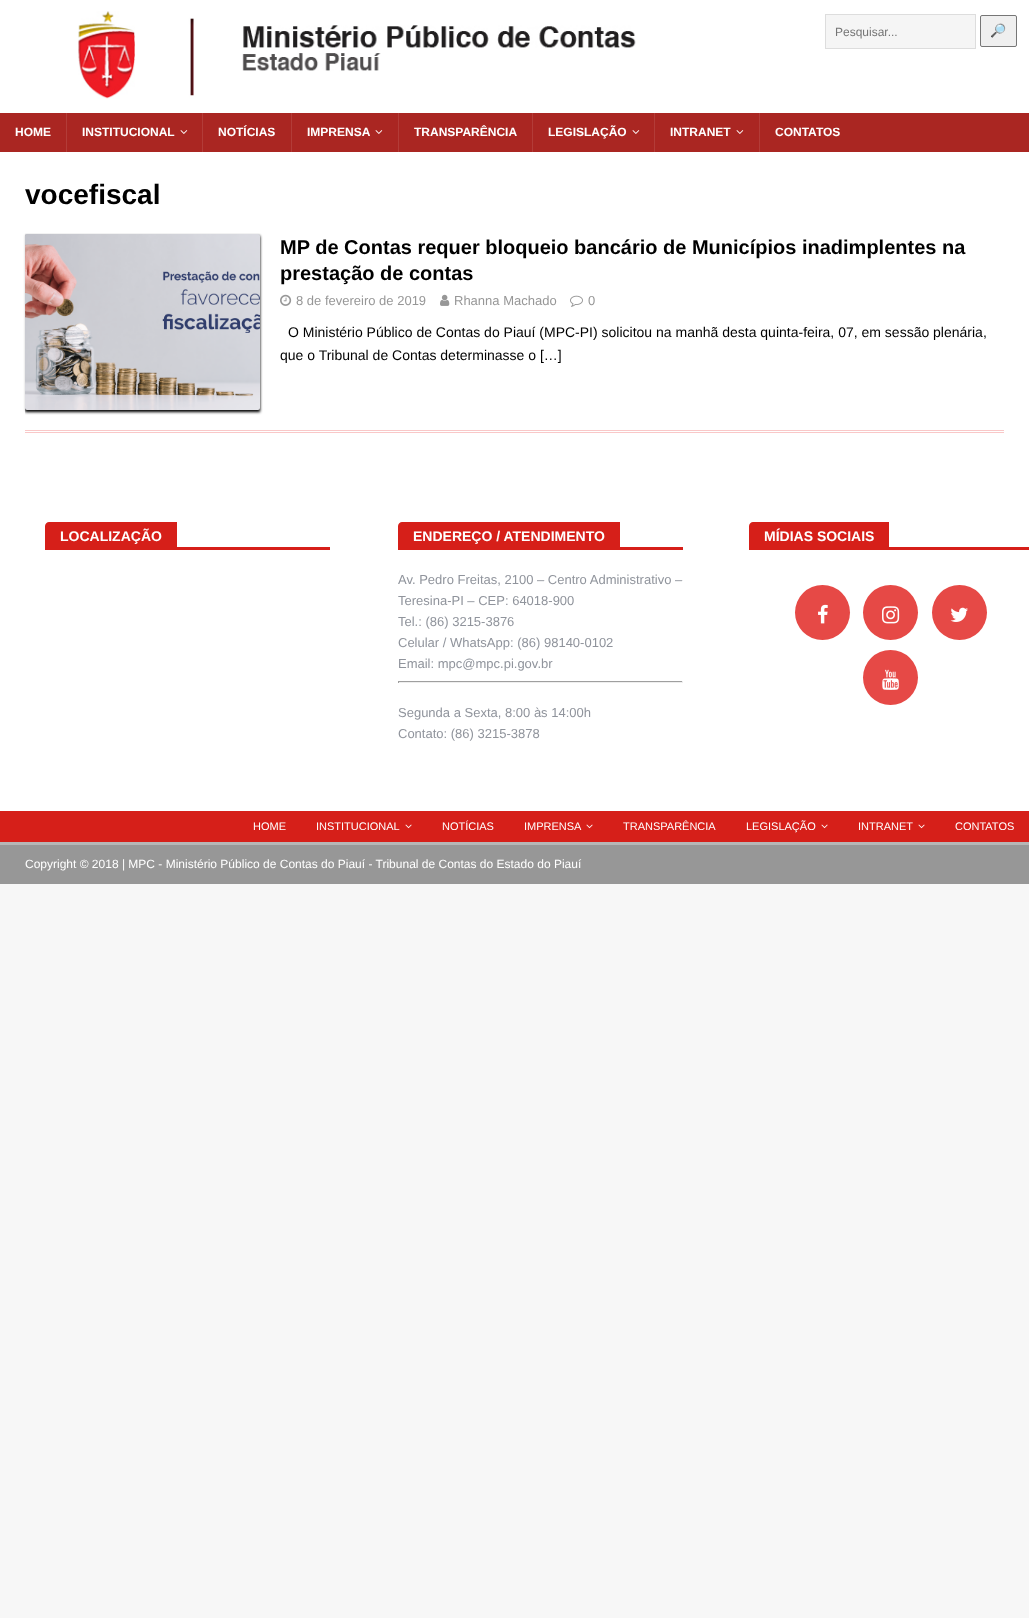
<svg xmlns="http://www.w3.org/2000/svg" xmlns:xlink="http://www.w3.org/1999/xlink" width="1029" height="1618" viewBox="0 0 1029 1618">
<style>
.cls-1{font:12px Liberation Sans;fill:#757575}
.cls-2{font:13px Noto Color Emoji;fill:#000000}
.cls-3{font:bold 12px Liberation Sans;fill:#ffffff}
.cls-4{font:bold 28px Liberation Sans;fill:#000000}
.cls-5{font:bold 20px Liberation Sans;fill:#000000}
.cls-6{font:13px Liberation Sans;fill:#979797}
.cls-7{font:14px Liberation Sans;fill:#000000}
.cls-8{font:bold 14px Liberation Sans;fill:#ffffff}
.cls-9{font:13px Liberation Sans;fill:#90949c}
.cls-10{font:11px Liberation Sans;fill:#ffffff}
.cls-11{font:12px Liberation Sans;fill:#ffffff}
</style>
<defs>
<clipPath id="clip1"><rect x="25" y="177" width="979" height="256"/></clipPath>
</defs>
<rect width="100%" height="100%" fill="#f7f7f7"/>
<rect fill="#ffffff" x="0" y="0" width="1029" height="113"/>
<image xlink:href="image0.png" x="78" y="11" width="558" height="88"/>
<rect fill="#f5f5f5" stroke="#dddddd" x="825.5" y="14.5" width="150" height="34"/>
<rect fill="#efefef" stroke="#767676" x="980.5" y="15.5" width="36" height="31" rx="1.5"/>
<rect fill="#aa2622" x="0" y="113" width="1029" height="39"/>
<rect fill="#b33c38" x="66" y="113" width="1" height="39"/>
<image xlink:href="image1.png" x="180" y="130" width="8" height="4"/>
<rect fill="#b33c38" x="202" y="113" width="1" height="39"/>
<rect fill="#b33c38" x="291" y="113" width="1" height="39"/>
<image xlink:href="image1.png" x="375" y="130" width="8" height="4"/>
<rect fill="#b33c38" x="398" y="113" width="1" height="39"/>
<rect fill="#b33c38" x="532" y="113" width="1" height="39"/>
<image xlink:href="image1.png" x="632" y="130" width="8" height="4"/>
<rect fill="#b33c38" x="654" y="113" width="1" height="39"/>
<image xlink:href="image1.png" x="736" y="130" width="8" height="4"/>
<rect fill="#b33c38" x="759" y="113" width="1" height="39"/>
<rect fill="#ffffff" x="0" y="152" width="1029" height="659"/>
<rect fill="#f9c8c8" x="25" y="430" width="979" height="1"/>
<rect fill="#f9c8c8" x="25" y="432" width="979" height="1"/>
<g clip-path="url(#clip1)">
<rect fill="#000000" filter="blur(1.5px)" x="25" y="236" width="235" height="176"/>
</g>
<rect fill="#000000" fill-opacity="0.2" filter="blur(1px)" x="25" y="235" width="235" height="176"/>
<image xlink:href="image2.png" x="25" y="234" width="235" height="176"/>
<image xlink:href="image3.png" x="280" y="294" width="12" height="12"/>
<image xlink:href="image4.png" x="440" y="294" width="10" height="12"/>
<image xlink:href="image5.png" x="570" y="295" width="13" height="12"/>
<rect fill="#d61f19" x="45" y="547" width="285" height="3"/>
<path fill="#d61f19" d="M49 522H177V547H45V526C45 524 47 522 49 522Z"/>
<rect fill="#d61f19" x="398" y="547" width="285" height="3"/>
<path fill="#d61f19" d="M402 522H620V547H398V526C398 524 400 522 402 522Z"/>
<rect fill="#9f9f9f" x="398" y="681" width="285" height="1"/>
<rect fill="#eeeeee" x="682" y="681" width="1" height="2"/>
<rect fill="#eeeeee" x="398" y="682" width="285" height="1"/>
<rect fill="#9f9f9f" x="398" y="681" width="1" height="2"/>
<rect fill="#d61f19" x="749" y="547" width="280" height="3"/>
<path fill="#d61f19" d="M753 522H889V547H749V526C749 524 751 522 753 522Z"/>
<circle fill="#e64946" cx="822.5" cy="612.5" r="27.5"/>
<image xlink:href="image6.png" x="818" y="604" width="10" height="20"/>
<circle fill="#e64946" cx="890.5" cy="612.5" r="27.5"/>
<image xlink:href="image7.png" x="882" y="606" width="18" height="18"/>
<circle fill="#e64946" cx="959.5" cy="612.5" r="27.5"/>
<image xlink:href="image8.png" x="950" y="607" width="18" height="15"/>
<circle fill="#e64946" cx="890.5" cy="677.5" r="27.5"/>
<image xlink:href="image9.png" x="882" y="669" width="17" height="21"/>
<rect fill="#d61f19" x="0" y="811" width="1029" height="31"/>
<image xlink:href="image10.png" x="405" y="824" width="7" height="5"/>
<image xlink:href="image10.png" x="586" y="824" width="7" height="5"/>
<image xlink:href="image10.png" x="821" y="824" width="7" height="5"/>
<image xlink:href="image10.png" x="918" y="824" width="7" height="5"/>
<rect fill="#979797" x="0" y="845" width="1029" height="39"/>
<rect fill="#b6b6b6" x="0" y="842" width="1029" height="3"/>
<text class="cls-1" x="835" y="36">Pesquisar...</text>
<text class="cls-2" x="990" y="35">🔎</text>
<text class="cls-3" x="15" y="136">HOME</text>
<text class="cls-3" x="82" y="136">INSTITUCIONAL</text>
<text class="cls-3" x="218" y="136">NOTÍCIAS</text>
<text class="cls-3" x="307" y="136">IMPRENSA</text>
<text class="cls-3" x="414" y="136">TRANSPARÊNCIA</text>
<text class="cls-3" x="548" y="136">LEGISLAÇÃO</text>
<text class="cls-3" x="670" y="136">INTRANET</text>
<text class="cls-3" x="775" y="136">CONTATOS</text>
<text class="cls-4" x="25" y="204">vocefiscal</text>
<text class="cls-5"><tspan x="280" y="254">MP de Contas requer bloqueio bancário de Municípios inadimplentes na</tspan><tspan x="280" y="280">prestação de contas</tspan></text>
<text class="cls-6" x="296" y="305">8 de fevereiro de 2019</text>
<text class="cls-6" x="454" y="305">Rhanna Machado</text>
<text class="cls-6" x="588" y="305">0</text>
<text class="cls-7" x="288" y="337">O Ministério Público de Contas do Piauí (MPC-PI) solicitou na manhã desta quinta-feira, 07, em sessão plenária,</text>
<text class="cls-7" x="280" y="360">que o Tribunal de Contas determinasse o […]</text>
<text class="cls-8" x="60" y="541">LOCALIZAÇÃO</text>
<text class="cls-8" x="413" y="541">ENDEREÇO / ATENDIMENTO</text>
<text class="cls-9"><tspan x="398" y="584">Av. Pedro Freitas, 2100 – Centro Administrativo –</tspan><tspan x="398" y="605">Teresina-PI – CEP: 64018-900</tspan><tspan x="398" y="626">Tel.: (86) 3215-3876</tspan><tspan x="398" y="647">Celular / WhatsApp: (86) 98140-0102</tspan><tspan x="398" y="668">Email: mpc@mpc.pi.gov.br</tspan></text>
<text class="cls-9"><tspan x="398" y="717">Segunda a Sexta, 8:00 às 14:00h</tspan><tspan x="398" y="738">Contato: (86) 3215-3878</tspan></text>
<text class="cls-8" x="764" y="541">MÍDIAS SOCIAIS</text>
<text class="cls-10" x="253" y="830">HOME</text>
<text class="cls-10" x="316" y="830">INSTITUCIONAL</text>
<text class="cls-10" x="442" y="830">NOTÍCIAS</text>
<text class="cls-10" x="524" y="830">IMPRENSA</text>
<text class="cls-10" x="623" y="830">TRANSPARÊNCIA</text>
<text class="cls-10" x="746" y="830">LEGISLAÇÃO</text>
<text class="cls-10" x="858" y="830">INTRANET</text>
<text class="cls-10" x="955" y="830">CONTATOS</text>
<text class="cls-11" x="25" y="868">Copyright © 2018 | MPC - Ministério Público de Contas do Piauí - Tribunal de Contas do Estado do Piauí</text>
</svg>
